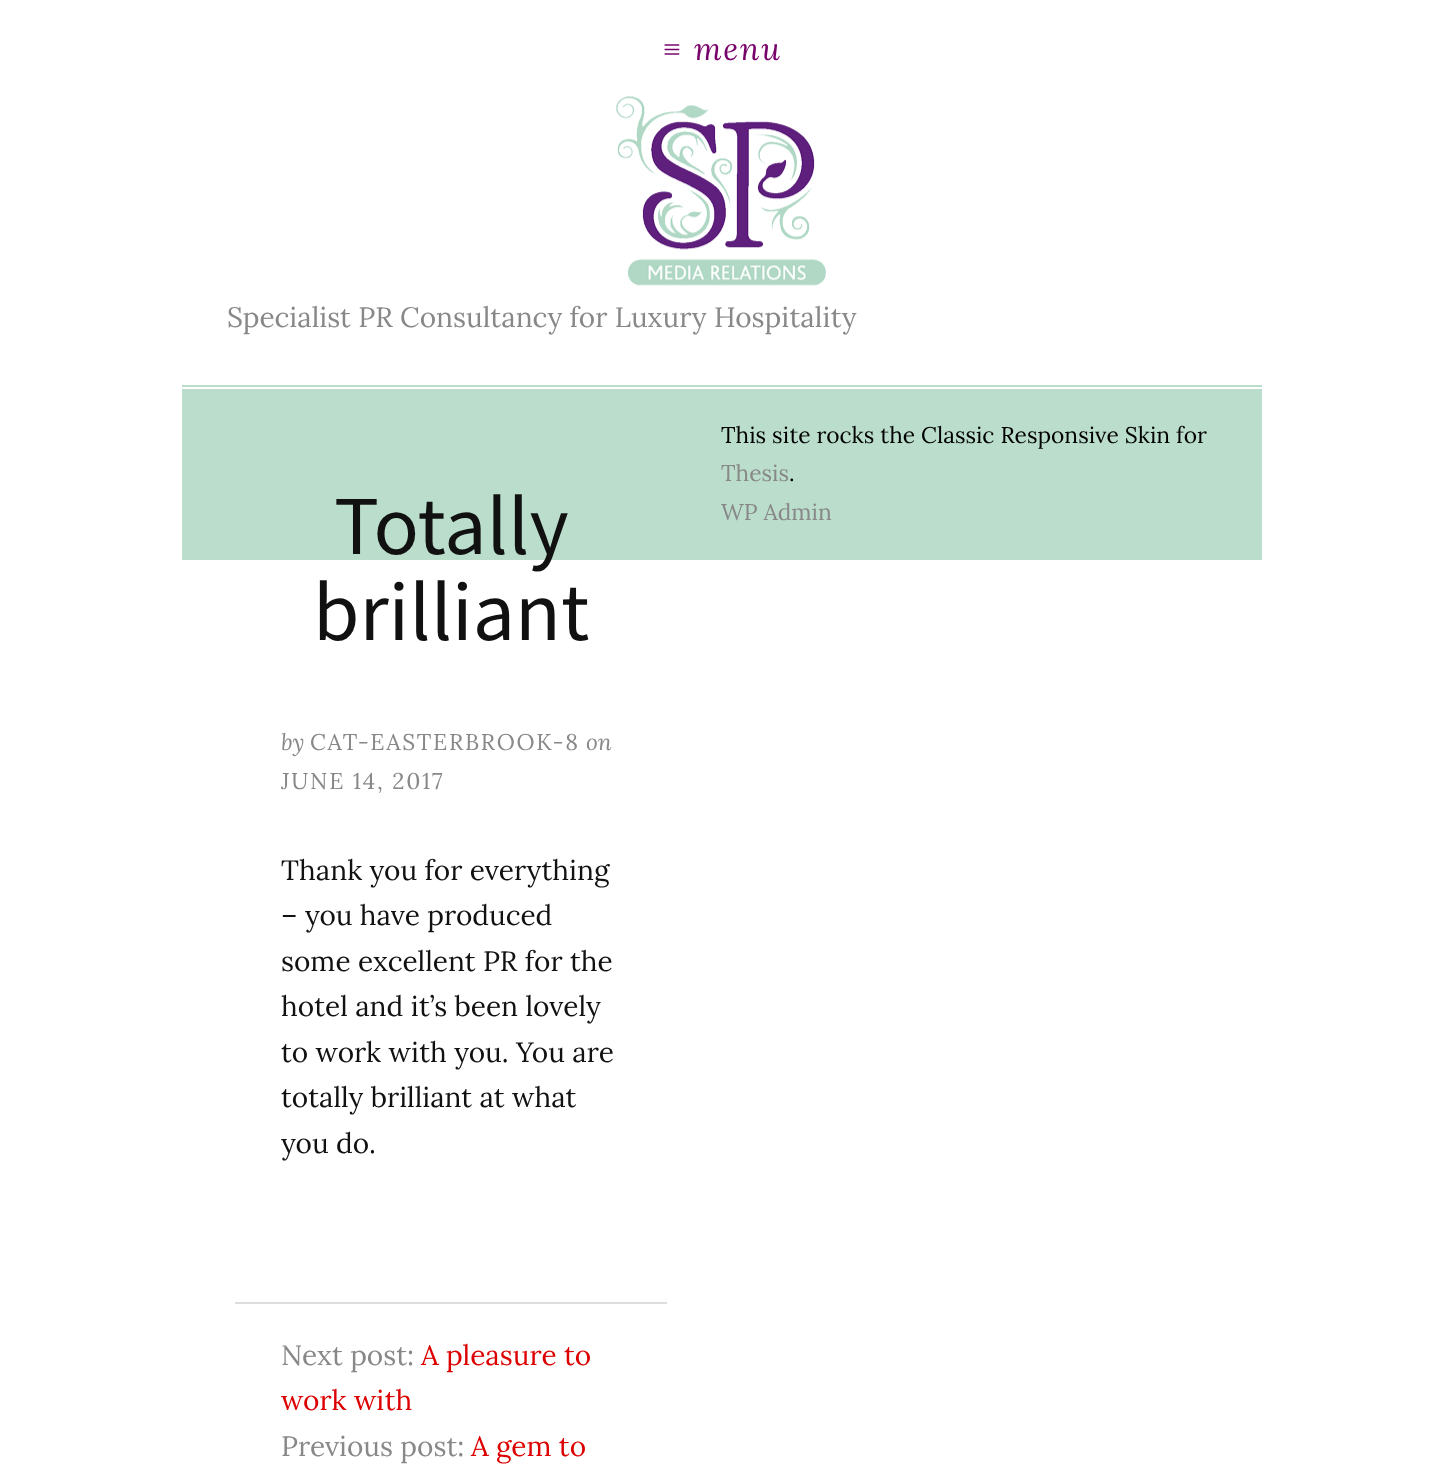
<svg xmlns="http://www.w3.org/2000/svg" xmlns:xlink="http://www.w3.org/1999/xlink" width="1442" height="1481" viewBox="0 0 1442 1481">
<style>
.cls-1{font:italic 31.5px Liberation Serif;letter-spacing:1.75px;fill:#770069}
.cls-2{font:italic 31.5px Lora;letter-spacing:1.75px;fill:#770069}
.cls-3{font:28px Lora;fill:#888888}
.cls-4{font:22.75px Lora;fill:#000000}
.cls-5{font:22.75px Lora;fill:#888888}
.cls-6{font:84px Source Sans Pro;fill:#111111}
.cls-7{font:italic 22.75px Lora;fill:#888888}
.cls-8{font:22.75px Lora;letter-spacing:1.75px;fill:#888888}
.cls-9{font:28px Lora;fill:#111111}
.cls-10{font:28px Lora;fill:#dd0000}
</style>
<rect width="100%" height="100%" fill="#ffffff"/>
<image xlink:href="image0.png" x="616" y="96" width="210" height="190"/>
<rect fill="#baddcc" x="182" y="385" width="1080" height="175"/>
<rect fill="#ffffff" x="182" y="387" width="1080" height="2"/>
<rect fill="#dddddd" x="235" y="1302" width="432" height="2"/>
<text class="cls-1" x="661" y="60">≡</text>
<text class="cls-2" x="694" y="60">menu</text>
<text class="cls-3" x="227" y="327">Specialist PR Consultancy for Luxury Hospitality</text>
<text class="cls-4" x="721" y="443">This site rocks the Classic Responsive Skin for</text>
<text class="cls-5" x="721" y="481">Thesis</text>
<text class="cls-4" x="789" y="481">.</text>
<text class="cls-5" x="721" y="520">WP Admin</text>
<text class="cls-6" x="334" y="554">Totally</text>
<text class="cls-6" x="313" y="640">brilliant</text>
<text class="cls-7" x="281" y="750">by</text>
<text class="cls-8" x="310" y="750">CAT-EASTERBROOK-8</text>
<text class="cls-7" x="586" y="750">on</text>
<text class="cls-8" x="281" y="789">JUNE 14, 2017</text>
<text class="cls-9"><tspan x="281" y="880">Thank you for everything</tspan><tspan x="281" y="925">– you have produced</tspan><tspan x="281" y="971">some excellent PR for the</tspan><tspan x="281" y="1016">hotel and it’s been lovely</tspan><tspan x="281" y="1062">to work with you. You are</tspan><tspan x="281" y="1107">totally brilliant at what</tspan><tspan x="281" y="1153">you do.</tspan></text>
<text class="cls-3" x="281" y="1365">Next post:</text>
<text class="cls-10" x="421" y="1365">A pleasure to</text>
<text class="cls-10" x="281" y="1410">work with</text>
<text class="cls-3" x="281" y="1456">Previous post:</text>
<text class="cls-10" x="471" y="1456">A gem to</text>
</svg>
